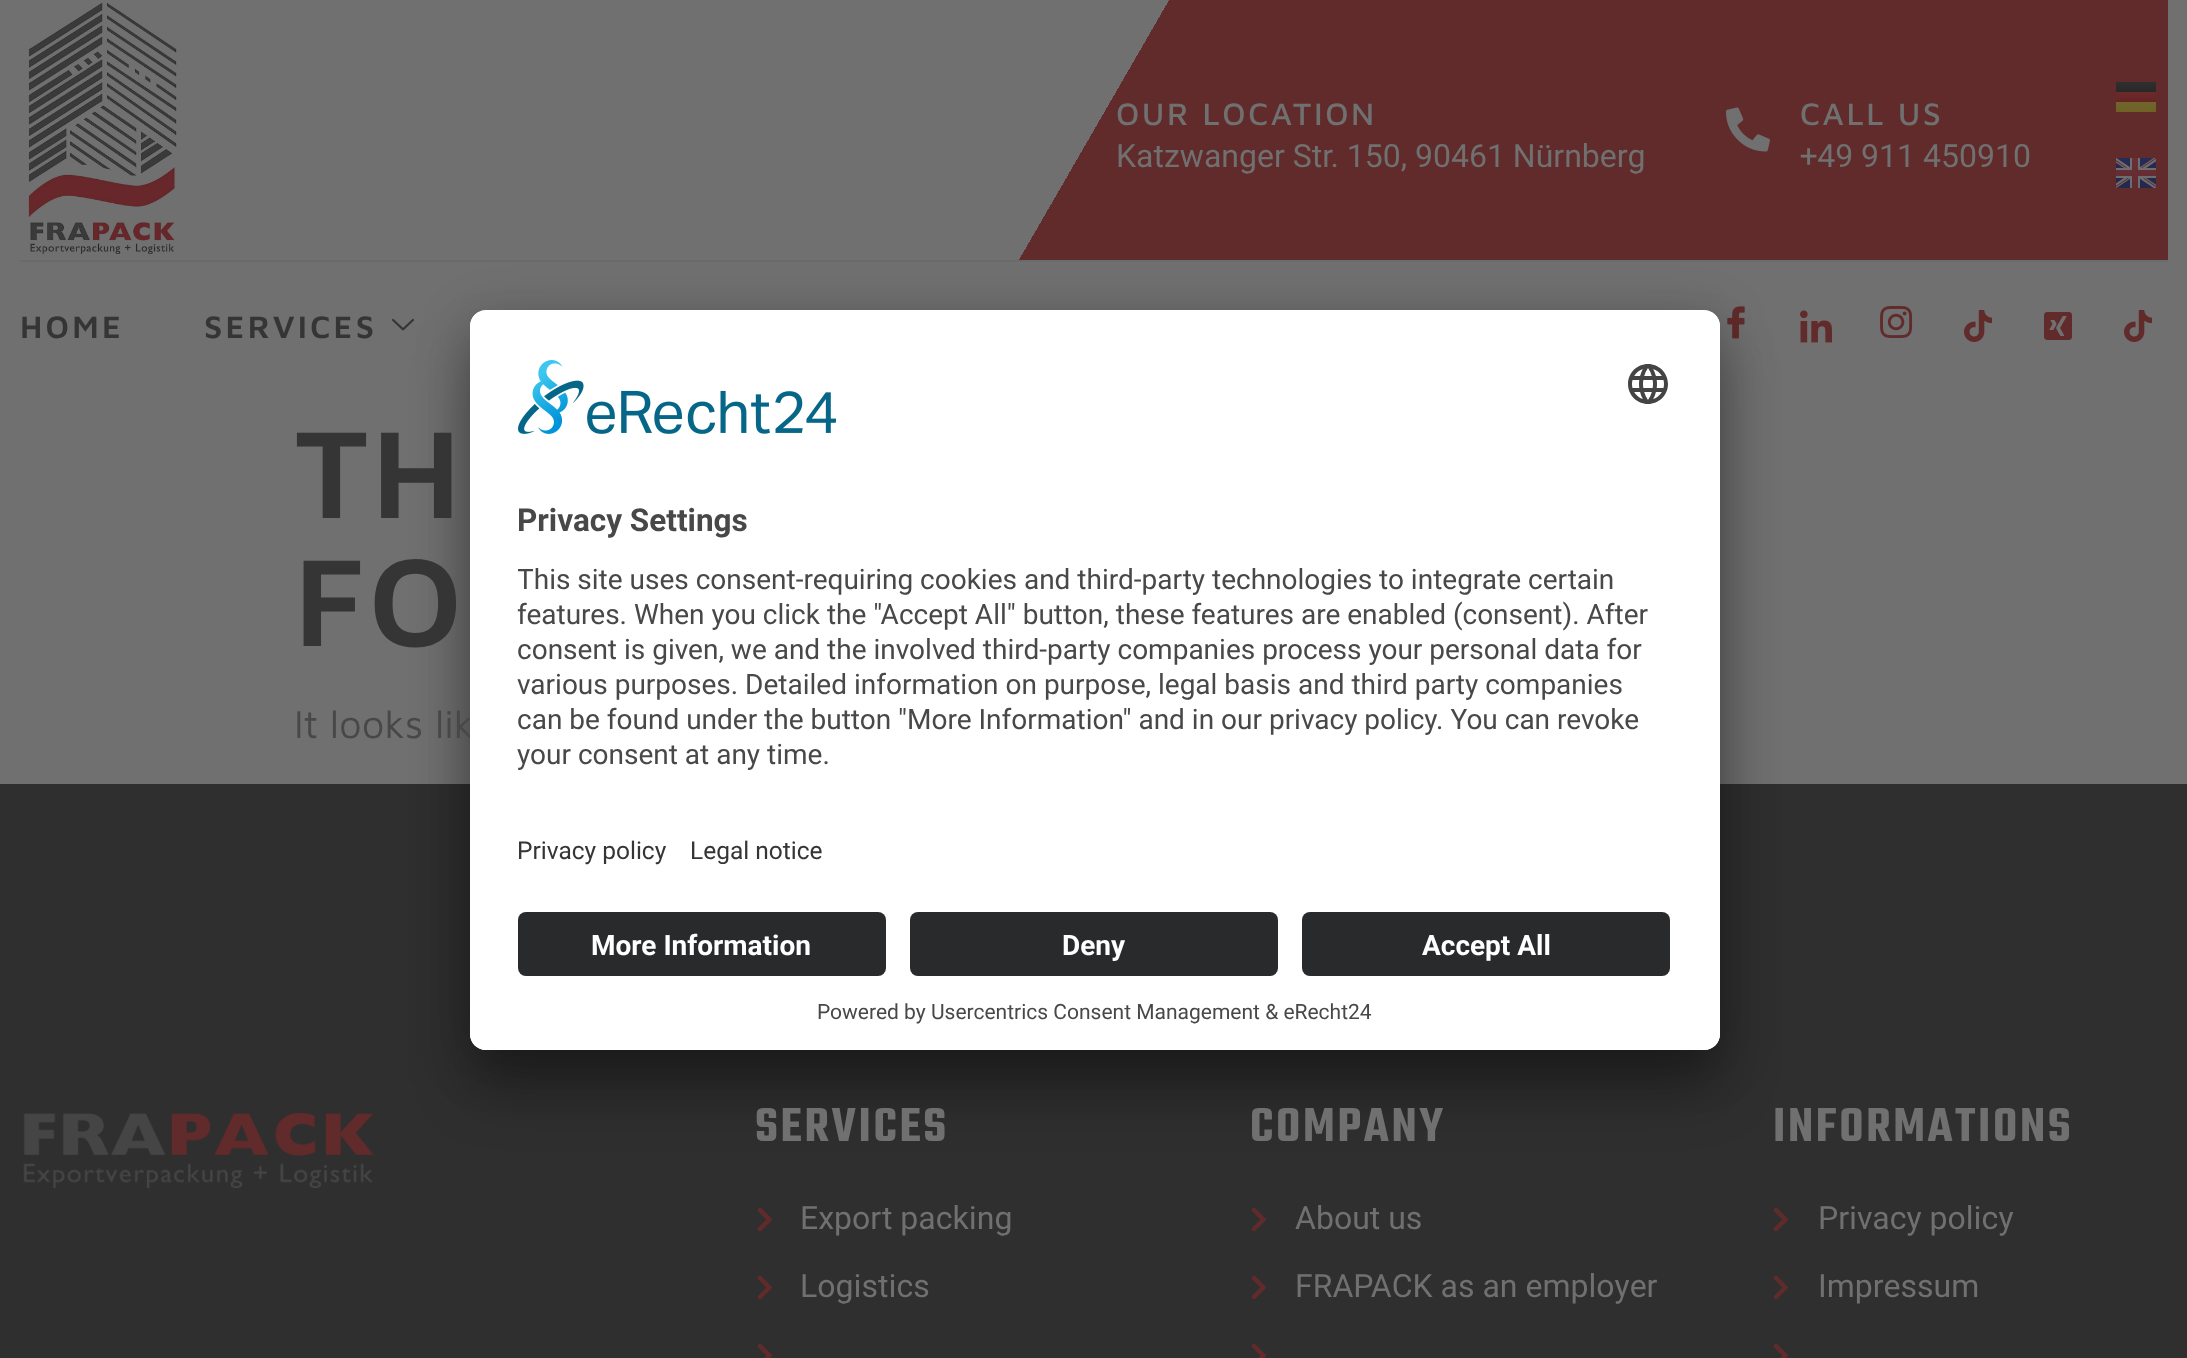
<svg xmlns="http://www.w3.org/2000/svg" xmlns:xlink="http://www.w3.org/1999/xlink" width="2187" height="1358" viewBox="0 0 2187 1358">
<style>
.cls-1{font:500 32px Maven Pro;letter-spacing:2.6px;fill:#707070}
.cls-2{font:32px Heebo;fill:#707070}
.cls-3{font:600 32px Maven Pro;letter-spacing:3.25px;fill:#353535}
.cls-4{font:600 128px Maven Pro;letter-spacing:2.6px;fill:#353535}
.cls-5{font:40px Maven Pro;fill:#484848}
.cls-6{font:bold 31.5px Roboto;fill:#484848}
.cls-7{font:28px Roboto;fill:#484848}
.cls-8{font:24.5px Roboto;fill:#353535}
.cls-9{font:bold 28px Roboto;fill:#ffffff}
.cls-10{font:21px Roboto;fill:#484848}
.cls-11{font:600 52px Teko;letter-spacing:2.6px;fill:#707070}
</style>
<defs>
<linearGradient id="g1" gradientUnits="userSpaceOnUse" x1="1956" y1="628" x2="232" y2="-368"><stop offset="0.5" stop-color="#612b2c"/><stop offset="0.5" stop-color="#707070"/></linearGradient>
<linearGradient id="g2" gradientUnits="userSpaceOnUse" x1="2135" y1="82" x2="2135" y2="92"><stop offset="0" stop-color="#2f2f2f"/><stop offset="1" stop-color="#282828"/></linearGradient>
<linearGradient id="g3" gradientUnits="userSpaceOnUse" x1="2135" y1="92" x2="2135" y2="102"><stop offset="0" stop-color="#6c2a2a"/><stop offset="1" stop-color="#662424"/></linearGradient>
<linearGradient id="g4" gradientUnits="userSpaceOnUse" x1="2135" y1="102" x2="2135" y2="112"><stop offset="0" stop-color="#70642e"/><stop offset="1" stop-color="#706224"/></linearGradient>
<clipPath id="clip1"><rect x="470" y="310" width="1250" height="740" rx="16"/></clipPath>
<clipPath id="clip2"><path d="M486 310H1704C1713 310 1720 317 1720 326V896H470V326C470 317 477 310 486 310Z"/></clipPath>
<clipPath id="clip3"><rect x="518" y="556" width="1154" height="226"/></clipPath>
</defs>
<rect width="100%" height="100%" fill="#707070"/>
<rect fill="url(#g1)" x="1019" y="0" width="1149" height="260"/>
<image xlink:href="image0.png" x="28" y="2" width="149" height="252"/>
<image xlink:href="image1.png" x="1726" y="107" width="44" height="45"/>
<rect fill="url(#g2)" x="2116" y="82" width="40" height="10"/>
<rect fill="url(#g3)" x="2116" y="92" width="40" height="10"/>
<rect fill="url(#g4)" x="2116" y="102" width="40" height="10"/>
<image xlink:href="image2.png" x="2116" y="158" width="40" height="30"/>
<rect fill="#696a6c" x="20" y="260" width="2148" height="2"/>
<image xlink:href="image3.png" x="392" y="318" width="22" height="13"/>
<image xlink:href="image4.png" x="1727" y="306" width="18" height="33"/>
<image xlink:href="image5.png" x="1800" y="310" width="32" height="33"/>
<image xlink:href="image6.png" x="1880" y="306" width="33" height="32"/>
<image xlink:href="image7.png" x="1964" y="310" width="28" height="32"/>
<image xlink:href="image8.png" x="2044" y="312" width="28" height="28"/>
<image xlink:href="image7.png" x="2124" y="310" width="28" height="32"/>
<rect fill="#2f2f2f" x="0" y="784" width="2187" height="574"/>
<rect fill="#000000" fill-opacity="0.3" filter="blur(28px)" x="470" y="350" width="1250" height="740" rx="16"/>
<rect fill="#000000" fill-opacity="0.22" filter="blur(26px)" x="470" y="320" width="1250" height="740" rx="16"/>
<image xlink:href="image11.png" x="23" y="1112" width="351" height="76"/>
<image xlink:href="image12.png" x="757" y="1207" width="15" height="25"/>
<image xlink:href="image12.png" x="757" y="1275" width="15" height="25"/>
<image xlink:href="image13.png" x="757" y="1343" width="15" height="15"/>
<image xlink:href="image12.png" x="1251" y="1207" width="15" height="25"/>
<image xlink:href="image12.png" x="1251" y="1275" width="15" height="25"/>
<image xlink:href="image13.png" x="1251" y="1343" width="15" height="15"/>
<image xlink:href="image12.png" x="1773" y="1207" width="15" height="25"/>
<image xlink:href="image12.png" x="1773" y="1275" width="15" height="25"/>
<image xlink:href="image13.png" x="1773" y="1343" width="15" height="15"/>
<text class="cls-1" x="1116" y="125">OUR LOCATION</text>
<text class="cls-2" x="1116" y="167">Katzwanger Str. 150, 90461 Nürnberg</text>
<text class="cls-1" x="1800" y="125">CALL US</text>
<text class="cls-2" x="1800" y="167">+49 911 450910</text>
<text class="cls-3" x="20" y="338">HOME</text>
<text class="cls-3" x="204" y="338">SERVICES</text>
<text class="cls-4"><tspan x="294" y="518">TH</tspan><tspan x="294" y="646">FO</tspan></text>
<text class="cls-5" x="294" y="738">It looks lik</text>
<rect fill="#ffffff" x="470" y="310" width="1250" height="740" rx="16"/>
<g clip-path="url(#clip1)">
<g clip-path="url(#clip2)">
<rect fill="#ffffff" x="470" y="312" width="1250" height="584"/>
</g>
</g>
<image xlink:href="image9.png" x="518" y="360" width="318" height="74"/>
<image xlink:href="image10.png" x="1628" y="364" width="40" height="40"/>
<text class="cls-6" x="517" y="531">Privacy Settings</text>
<g clip-path="url(#clip3)">
<text class="cls-7" x="517" y="589">This site uses consent-requiring cookies and third-party technologies to integrate certain</text>
</g>
<text class="cls-7"><tspan x="517" y="624">features. When you click the "Accept All" button, these features are enabled (consent). After</tspan><tspan x="517" y="659">consent is given, we and the involved third-party companies process your personal data for</tspan><tspan x="517" y="694">various purposes. Detailed information on purpose, legal basis and third party companies</tspan><tspan x="517" y="729">can be found under the button "More Information" and in our privacy policy. You can revoke</tspan><tspan x="517" y="764">your consent at any time.</tspan></text>
<text class="cls-8" x="517" y="859">Privacy policy</text>
<text class="cls-8" x="690" y="859">Legal notice</text>
<path fill="#ffffff" d="M470 896H1720V1034C1720 1043 1713 1050 1704 1050H486C477 1050 470 1043 470 1034Z"/>
<rect fill="#292a2b" x="518" y="912" width="368" height="64" rx="8"/>
<text class="cls-9" x="591" y="955">More Information</text>
<rect fill="#292a2b" x="910" y="912" width="368" height="64" rx="8"/>
<text class="cls-9" x="1062" y="955">Deny</text>
<rect fill="#292a2b" x="1302" y="912" width="368" height="64" rx="8"/>
<text class="cls-9" x="1422" y="955">Accept All</text>
<text class="cls-10" x="817" y="1019">Powered by Usercentrics Consent Management &amp; eRecht24</text>
<text class="cls-11" x="755" y="1141">SERVICES</text>
<text class="cls-2" x="800" y="1229">Export packing</text>
<text class="cls-2" x="800" y="1297">Logistics</text>
<text class="cls-11" x="1250" y="1141">COMPANY</text>
<text class="cls-2" x="1295" y="1229">About us</text>
<text class="cls-2" x="1295" y="1297">FRAPACK as an employer</text>
<text class="cls-11" x="1773" y="1141">INFORMATIONS</text>
<text class="cls-2" x="1818" y="1229">Privacy policy</text>
<text class="cls-2" x="1818" y="1297">Impressum</text>
</svg>
